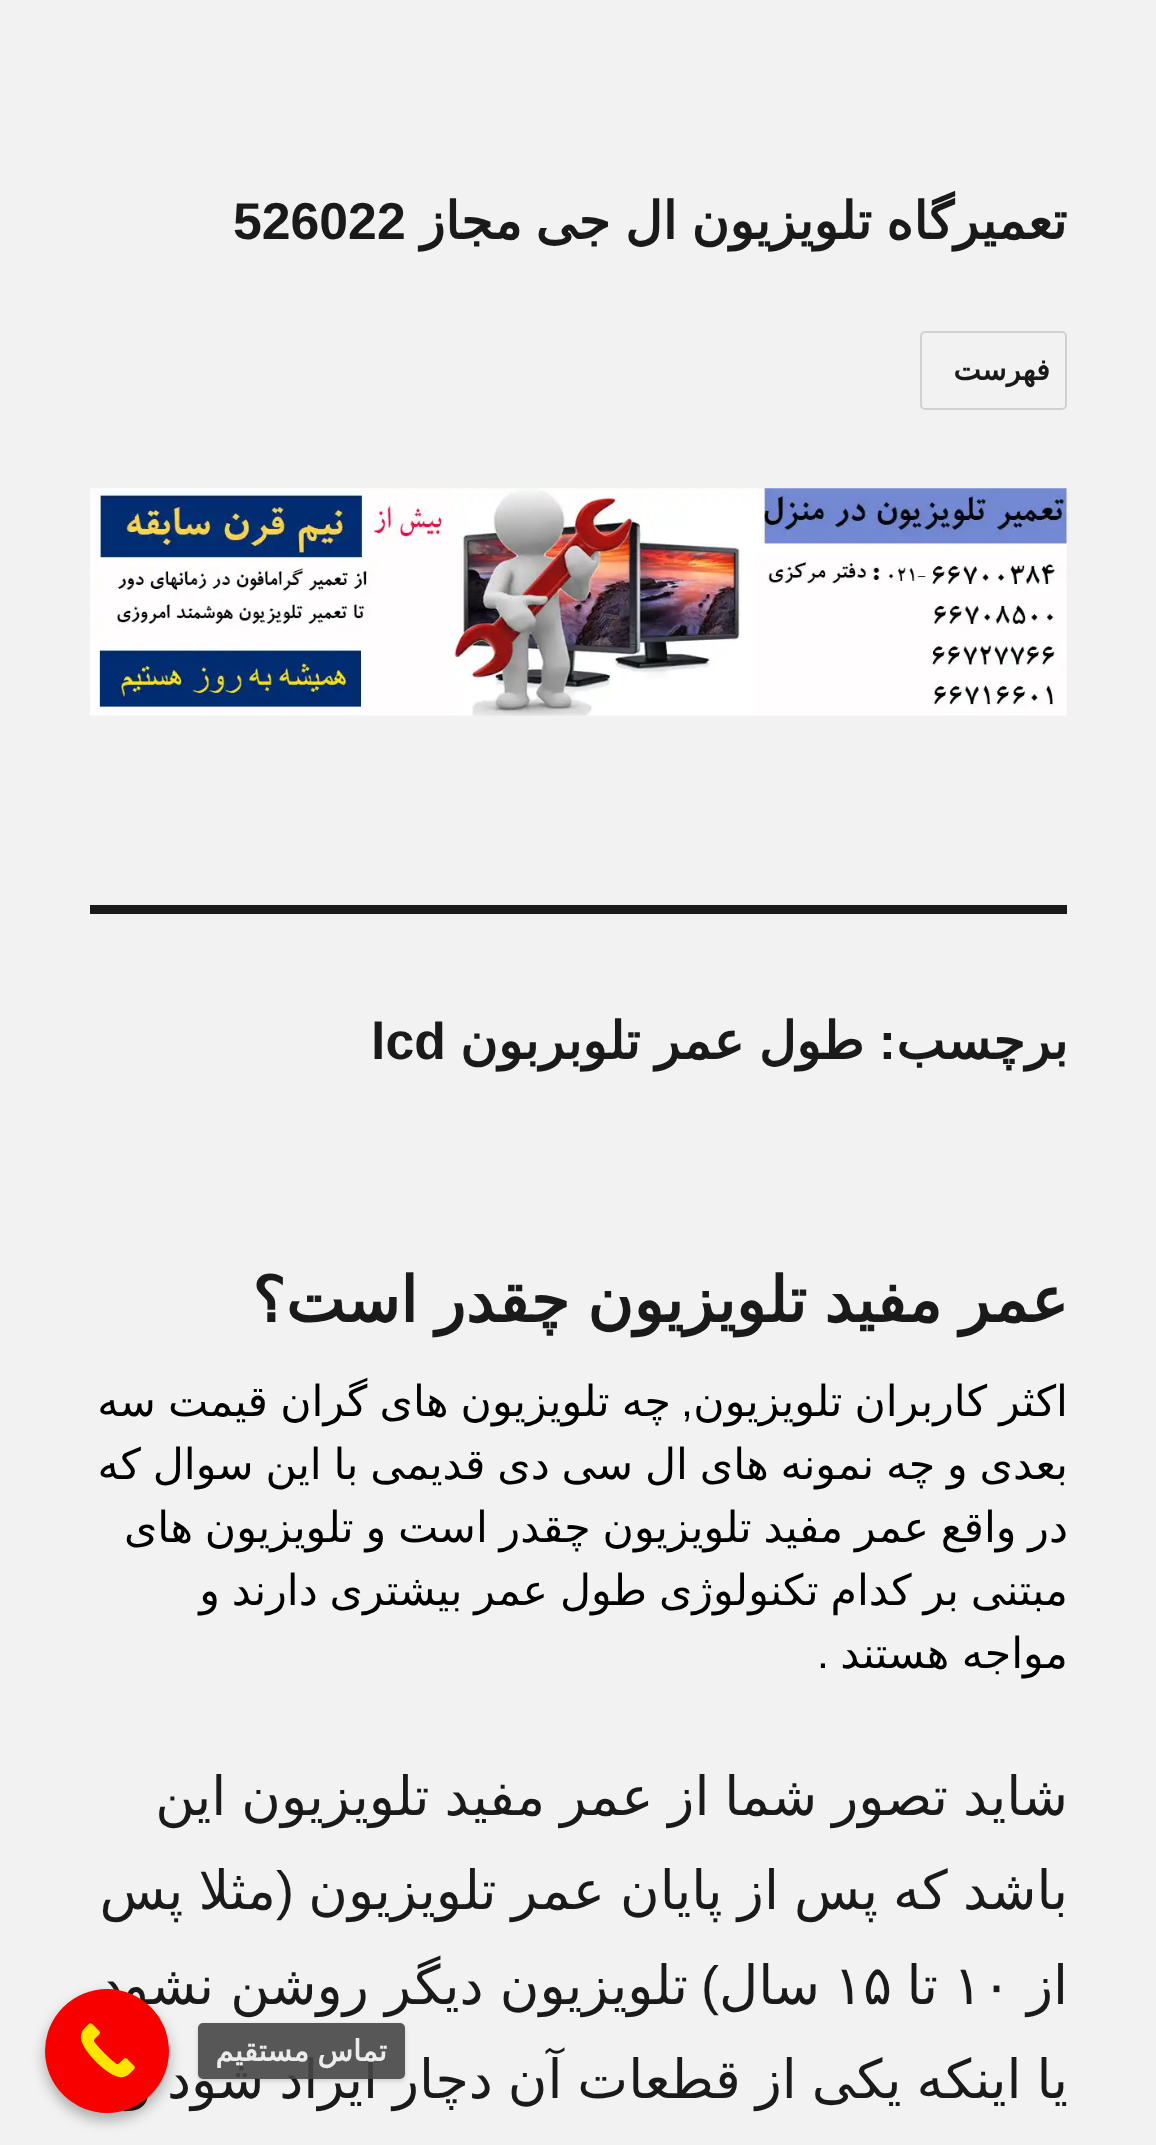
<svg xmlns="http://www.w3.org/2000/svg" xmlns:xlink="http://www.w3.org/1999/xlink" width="1156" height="2145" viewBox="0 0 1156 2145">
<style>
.cls-1{font:bold 51.75px DejaVu Sans;direction:rtl;fill:#1a1a1a}
.cls-2{font:bold 51.75px Liberation Sans;fill:#1a1a1a}
.cls-3{font:bold 29.25px DejaVu Sans;letter-spacing:1.5px;direction:rtl;fill:#1a1a1a}
.cls-4{font:bold 51.75px Liberation Sans;direction:rtl;fill:#1a1a1a}
.cls-5{font:bold 63px DejaVu Sans;direction:rtl;fill:#1a1a1a}
.cls-6{font:42.75px DejaVu Sans;direction:rtl;fill:#000000}
.cls-7{font:42.75px Liberation Sans;direction:rtl;fill:#000000}
.cls-8{font:54px DejaVu Sans;direction:rtl;fill:#1a1a1a}
.cls-9{font:54px Liberation Sans;direction:rtl;fill:#1a1a1a}
.cls-10{font:54px DejaVu Sans;fill:#1a1a1a}
.cls-11{font:bold 29.25px DejaVu Sans;direction:rtl;fill:#ececec}
</style>
<defs>
<clipPath id="clip1"><path d="M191 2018H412V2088H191ZM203 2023H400C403 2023 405 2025 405 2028V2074C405 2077 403 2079 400 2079H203C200 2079 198 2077 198 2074V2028C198 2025 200 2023 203 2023Z" clip-rule="evenodd"/></clipPath>
<clipPath id="clip2"><rect x="232" y="189" width="835" height="63"/></clipPath>
</defs>
<rect width="100%" height="100%" fill="#f2f2f2"/>
<rect fill="none" stroke="#d1d1d1" stroke-width="2" x="921" y="332" width="145" height="77" rx="4"/>
<image xlink:href="image0.png" x="90" y="488" width="977" height="228"/>
<rect fill="#1a1a1a" x="90" y="905" width="977" height="9"/>
<rect fill="#000000" fill-opacity="0.3" filter="blur(7px)" x="45" y="1996" width="124" height="124" rx="62"/>
<g clip-path="url(#clip1)">
<rect fill="#000000" fill-opacity="0.15" filter="blur(2px)" x="198" y="2025" width="207" height="56" rx="5"/>
</g>
<g clip-path="url(#clip2)">
<text class="cls-1" x="1067" y="239" word-spacing="-2">تعمیرگاه تلویزیون ال جی</text>
</g>
<text class="cls-1" x="522" y="239">مجاز</text>
<text class="cls-2" x="233" y="239">526022</text>
<text class="cls-3" x="1050" y="380">فهرست</text>
<text class="cls-1" x="1068" y="1059">برچسب</text>
<text class="cls-4" x="896" y="1059">:</text>
<text class="cls-1" x="864" y="1059" word-spacing="-2">طول عمر تلوبربون</text>
<text class="cls-2" x="371" y="1059">lcd</text>
<text class="cls-5" x="1068" y="1322" word-spacing="-2.5">عمر مفید تلویزیون چقدر است؟</text>
<text class="cls-6" x="1068" y="1416" word-spacing="-1.5">اکثر کاربران تلویزیون</text>
<text class="cls-7" x="693" y="1416">,</text>
<text class="cls-6" x="671" y="1416" word-spacing="-1.5">چه تلویزیون های گران قیمت سه</text>
<text class="cls-6"><tspan x="1068" y="1479" word-spacing="-1.75">بعدی و چه نمونه های ال سی دی قدیمی با این سوال که</tspan><tspan x="1068" y="1542" word-spacing="-1.75">در واقع عمر مفید تلویزیون چقدر است و تلویزیون های</tspan><tspan x="1068" y="1605" word-spacing="-1.75">مبتنی بر کدام تکنولوژی طول عمر بیشتری دارند و</tspan><tspan x="1068" y="1668" word-spacing="-1">مواجه هستند</tspan></text>
<text class="cls-7" x="829" y="1668">.</text>
<text class="cls-8"><tspan x="1068" y="1815" word-spacing="-2.25">شاید تصور شما از عمر مفید تلویزیون این</tspan><tspan x="1068" y="1909" word-spacing="-2">باشد که پس از پایان عمر تلویزیون</tspan></text>
<text class="cls-9" x="294" y="1909">(</text>
<text class="cls-8" x="276" y="1909" word-spacing="-2">مثلا پس</text>
<text class="cls-8" x="1068" y="2004">از</text>
<text class="cls-10" x="953" y="2004">۱۰</text>
<text class="cls-8" x="938" y="2004">تا</text>
<text class="cls-10" x="834" y="2004">۱۵</text>
<text class="cls-8" x="820" y="2004">سال</text>
<text class="cls-9" x="719" y="2004">)</text>
<text class="cls-8" x="688" y="2004" word-spacing="-1">تلویزیون دیگر روشن نشود</text>
<text class="cls-8" x="1068" y="2098" word-spacing="-2.25">یا اینکه یکی از قطعات آن دچار ایراد شود و</text>
<circle fill="#f90000" cx="107" cy="2051" r="62"/>
<image xlink:href="image1.png" x="80" y="2023" width="55" height="55"/>
<rect fill="#464646" fill-opacity="0.9" x="198" y="2023" width="207" height="56" rx="5"/>
<text class="cls-11" x="387" y="2061" word-spacing="-1">تماس مستقیم</text>
</svg>
